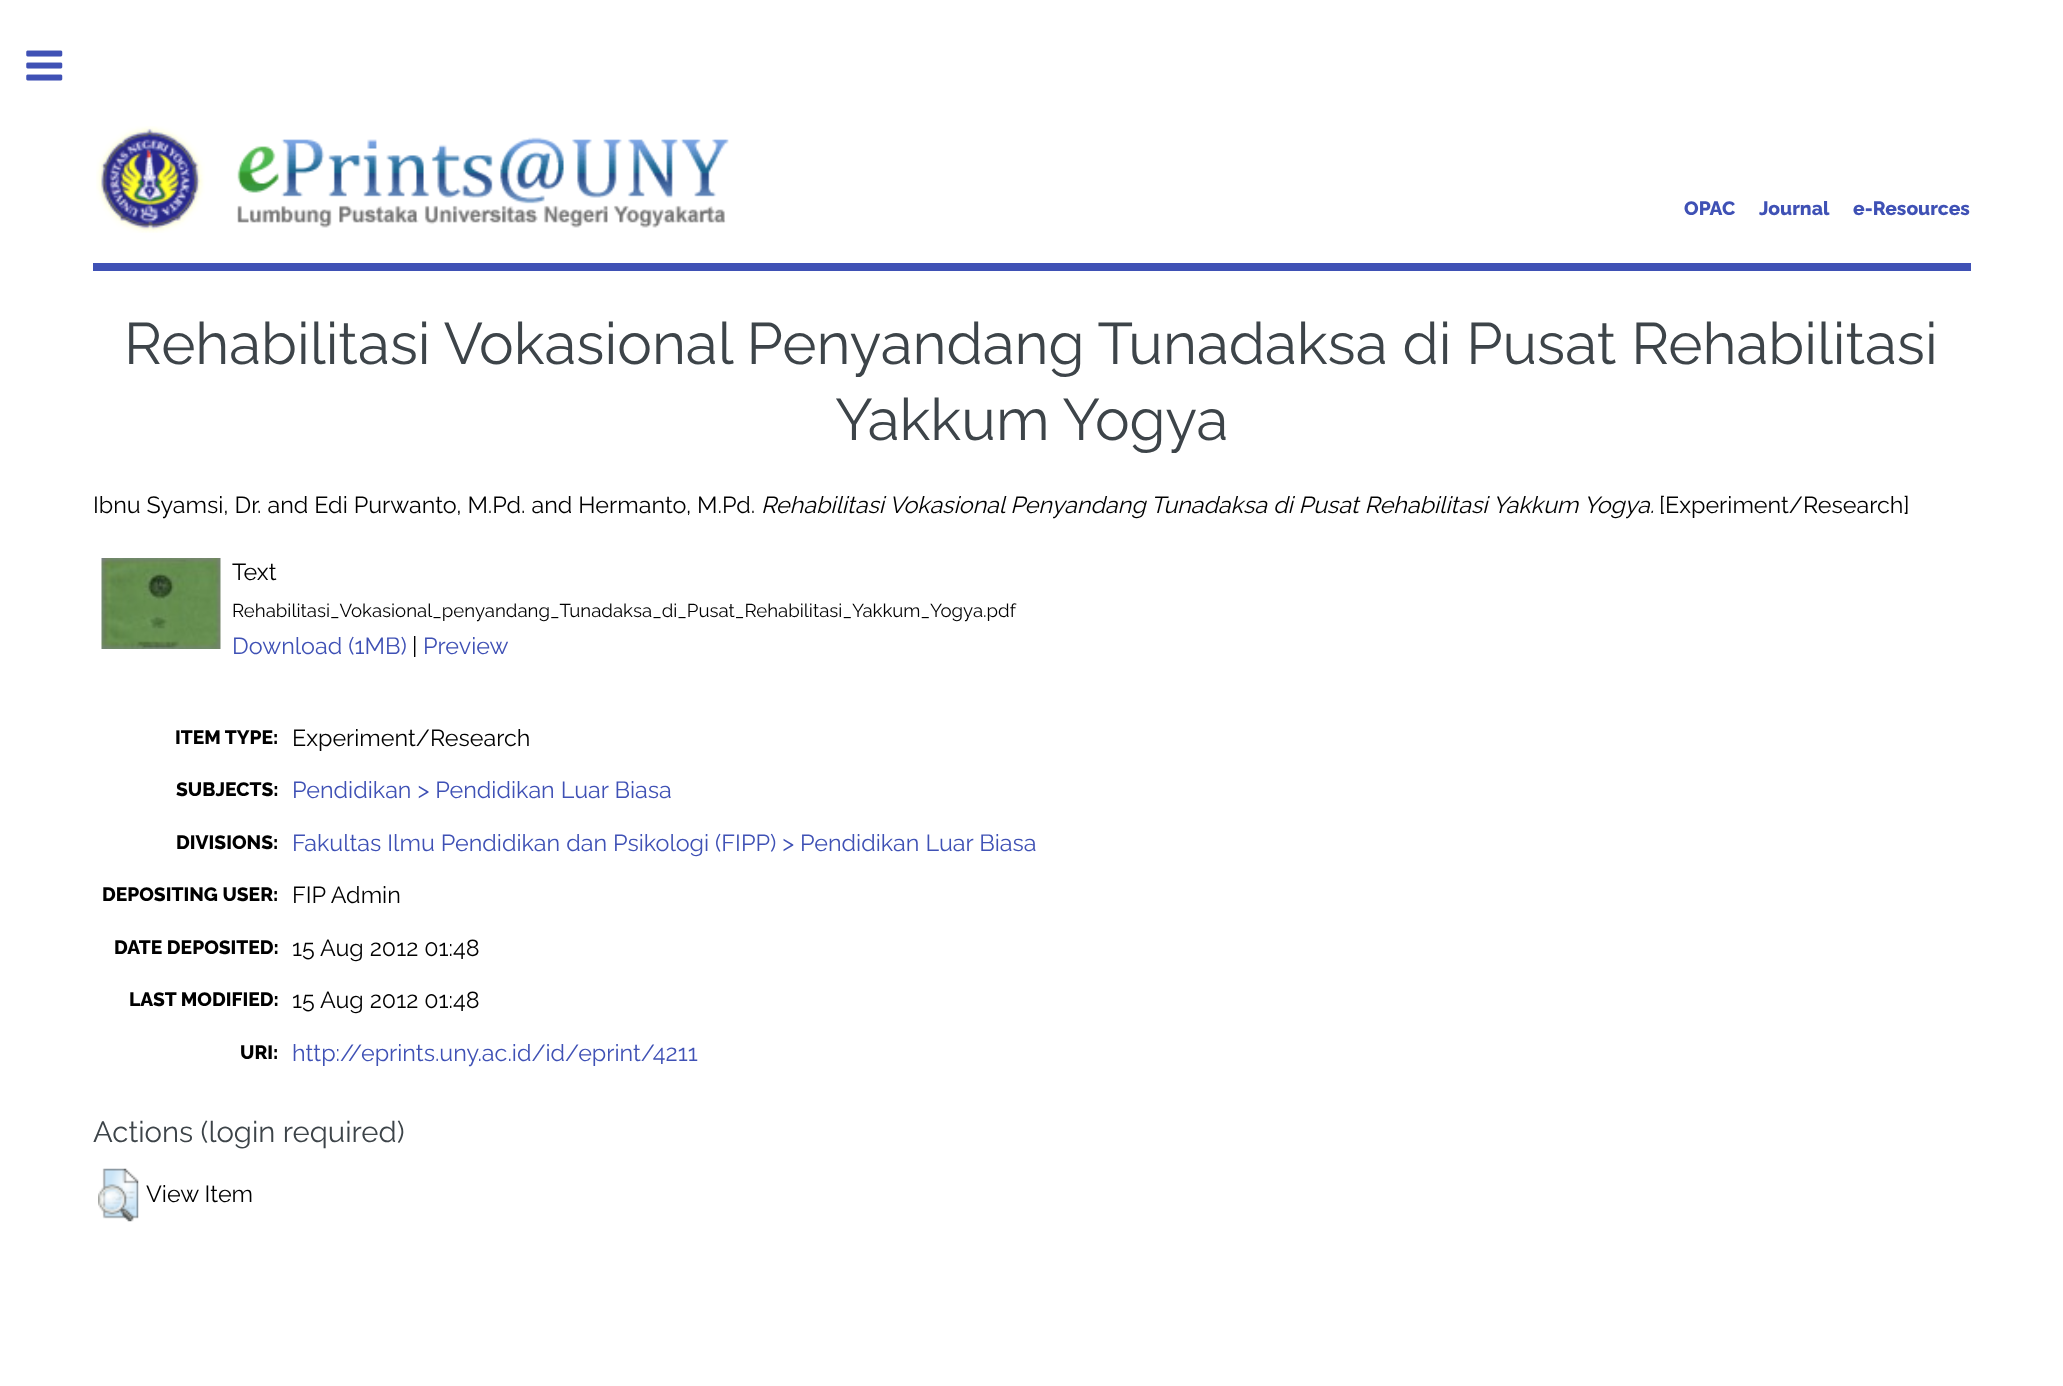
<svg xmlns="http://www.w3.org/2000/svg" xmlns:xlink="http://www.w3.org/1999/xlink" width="2063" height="1386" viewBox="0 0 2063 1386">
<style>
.cls-1{font:800 19.25px Raleway;fill:#3f51b5}
.cls-2{font:58.3px Raleway;fill:#3d4449}
.cls-3{font:23.35px Raleway;fill:#000000}
.cls-4{font:italic 23.35px Raleway;fill:#000000}
.cls-5{font:18.65px Raleway;fill:#000000}
.cls-6{font:23.35px Raleway;fill:#3f51b5}
.cls-7{font:800 19.25px Raleway;fill:#000000}
.cls-8{font:29.25px Raleway;fill:#3d4449}
</style>
<rect width="100%" height="100%" fill="#ffffff"/>
<image xlink:href="image0.png" x="26" y="50" width="37" height="31"/>
<rect fill="#3f51b5" x="93" y="263" width="1878" height="8"/>
<image xlink:href="image1.png" x="96" y="126" width="633" height="107"/>
<image xlink:href="image2.png" x="101" y="558" width="120" height="91"/>
<image xlink:href="image3.png" x="98" y="1168" width="41" height="54"/>
<text class="cls-1" x="1684" y="215">OPAC</text>
<text class="cls-1" x="1759" y="215">Journal</text>
<text class="cls-1" x="1853" y="215">e-Resources</text>
<text class="cls-2" x="124" y="364">Rehabilitasi Vokasional Penyandang Tunadaksa di Pusat Rehabilitasi</text>
<text class="cls-2" x="835" y="440">Yakkum Yogya</text>
<text class="cls-3" x="93" y="513">Ibnu Syamsi, Dr. and Edi Purwanto, M.Pd. and Hermanto, M.Pd.</text>
<text class="cls-4" x="761" y="513">Rehabilitasi Vokasional Penyandang Tunadaksa di Pusat Rehabilitasi Yakkum Yogya.</text>
<text class="cls-3" x="1659" y="513">[Experiment/Research]</text>
<text class="cls-3" x="232" y="580">Text</text>
<text class="cls-5" x="232" y="617">Rehabilitasi_Vokasional_penyandang_Tunadaksa_di_Pusat_Rehabilitasi_Yakkum_Yogya.pdf</text>
<text class="cls-6" x="232" y="654">Download (1MB)</text>
<text class="cls-3" x="412" y="654">|</text>
<text class="cls-6" x="423" y="654">Preview</text>
<text class="cls-7" x="175" y="744">ITEM TYPE:</text>
<text class="cls-3" x="292" y="746">Experiment/Research</text>
<text class="cls-7" x="176" y="796">SUBJECTS:</text>
<text class="cls-6" x="292" y="798">Pendidikan &gt; Pendidikan Luar Biasa</text>
<text class="cls-7" x="176" y="849">DIVISIONS:</text>
<text class="cls-6" x="292" y="851">Fakultas Ilmu Pendidikan dan Psikologi (FIPP) &gt; Pendidikan Luar Biasa</text>
<text class="cls-7" x="102" y="901">DEPOSITING USER:</text>
<text class="cls-3" x="292" y="903">FIP Admin</text>
<text class="cls-7" x="114" y="954">DATE DEPOSITED:</text>
<text class="cls-3" x="292" y="956">15 Aug 2012 01:48</text>
<text class="cls-7" x="129" y="1006">LAST MODIFIED:</text>
<text class="cls-3" x="292" y="1008">15 Aug 2012 01:48</text>
<text class="cls-7" x="240" y="1059">URI:</text>
<text class="cls-6" x="292" y="1061">http://eprints.uny.ac.id/id/eprint/4211</text>
<text class="cls-8" x="93" y="1142">Actions (login required)</text>
<text class="cls-3" x="146" y="1202">View Item</text>
</svg>
